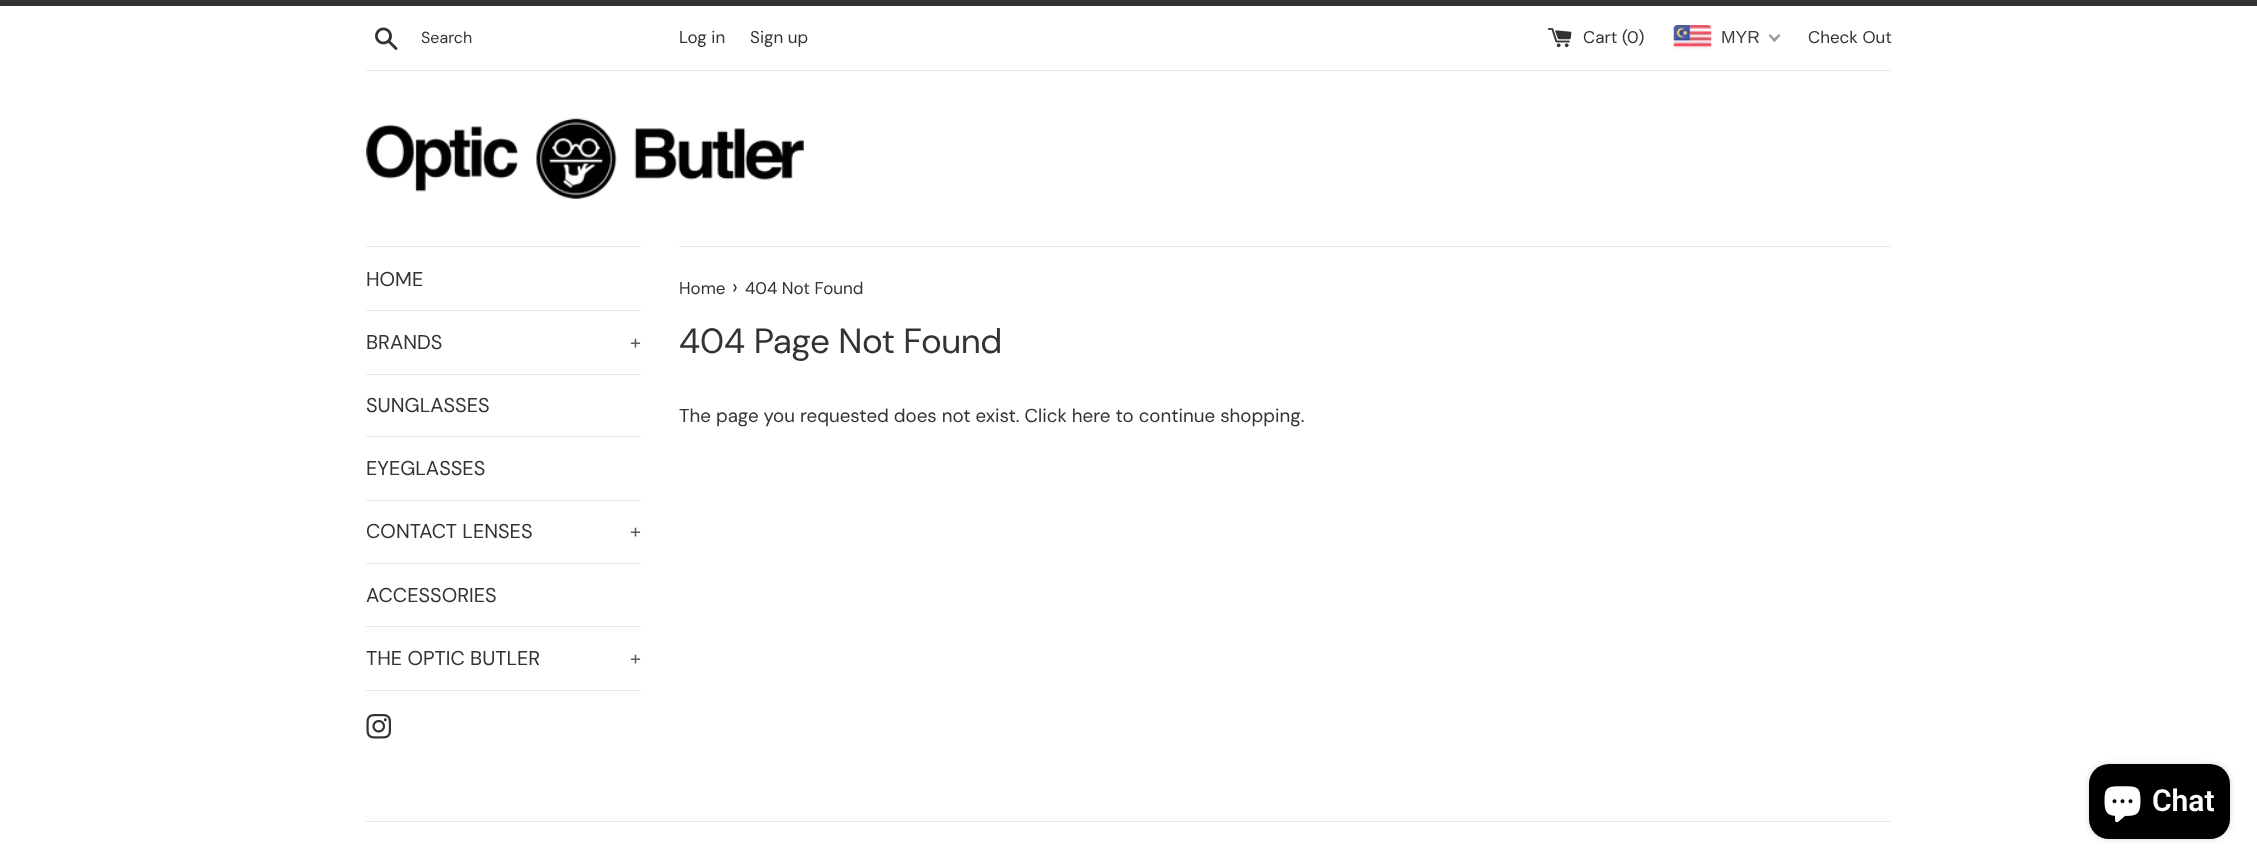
<svg xmlns="http://www.w3.org/2000/svg" xmlns:xlink="http://www.w3.org/1999/xlink" width="2257" height="864" viewBox="0 0 2257 864">
<style>
.cls-1{font:16px DM Sans;fill:#333333}
.cls-2{font:17px 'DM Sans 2';fill:#333333}
.cls-3{font:17.5px Liberation Sans;fill:#403f3f}
.cls-4{font:20px 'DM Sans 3';fill:#333333}
.cls-5{font:20px 'DM Sans 3';fill:#5c5c5c}
.cls-6{font:21px 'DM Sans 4';fill:#333333}
.cls-7{font:35px 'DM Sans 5';fill:#333333}
.cls-8{font:18.75px 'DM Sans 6';fill:#333333}
.cls-9{font:600 30px Roboto;fill:#ffffff}
</style>
<rect width="100%" height="100%" fill="#ffffff"/>
<rect fill="#333333" x="0" y="0" width="2257" height="6"/>
<image xlink:href="image0.png" x="375" y="27" width="23" height="23"/>
<image xlink:href="image1.png" x="1548" y="28" width="24" height="20"/>
<image xlink:href="image2.png" x="1673" y="25" width="39" height="25"/>
<path fill="#999999" d="M1779 34L1780.5 35.5L1774.5 42L1772.5 40Z"/>
<path fill="#999999" d="M1770 34L1776 40L1774.5 42L1768.5 35.5Z"/>
<rect fill="#e8e8e8" x="366" y="70" width="1525" height="1"/>
<image xlink:href="image3.png" x="366" y="118" width="438" height="81"/>
<rect fill="#e8e8e8" x="366" y="246" width="275" height="1"/>
<rect fill="#e8e8e8" x="366" y="310" width="275" height="1"/>
<rect fill="#e8e8e8" x="366" y="374" width="275" height="1"/>
<rect fill="#e8e8e8" x="366" y="436" width="275" height="1"/>
<rect fill="#e8e8e8" x="366" y="500" width="275" height="1"/>
<rect fill="#e8e8e8" x="366" y="563" width="275" height="1"/>
<rect fill="#e8e8e8" x="366" y="626" width="275" height="1"/>
<rect fill="#e8e8e8" x="366" y="690" width="275" height="1"/>
<image xlink:href="image4.png" x="366" y="714" width="25" height="25"/>
<rect fill="#e8e8e8" x="679" y="246" width="1212" height="1"/>
<rect fill="#e8e8e8" x="366" y="821" width="1525" height="1"/>
<rect fill="#000000" fill-opacity="0.15" filter="blur(3px)" x="2089" y="764" width="141" height="75" rx="20"/>
<rect fill="#000000" x="2089" y="764" width="141" height="75" rx="20"/>
<image xlink:href="image5.png" x="2104" y="786" width="37" height="37"/>
<text class="cls-1" x="421" y="43">Search</text>
<text class="cls-2" x="679" y="43">Log in</text>
<text class="cls-2" x="750" y="43">Sign up</text>
<text class="cls-2" x="1583" y="43">Cart (</text>
<text class="cls-2" x="1627" y="43">0</text>
<text class="cls-2" x="1638" y="43">)</text>
<text class="cls-3" x="1721" y="43">MYR</text>
<text class="cls-2" x="1808" y="43">Check Out</text>
<text class="cls-4" x="366" y="286">HOME</text>
<text class="cls-4" x="366" y="349">BRANDS</text>
<text class="cls-5" x="630" y="349">+</text>
<text class="cls-4" x="366" y="412">SUNGLASSES</text>
<text class="cls-4" x="366" y="475">EYEGLASSES</text>
<text class="cls-4" x="366" y="538">CONTACT LENSES</text>
<text class="cls-5" x="630" y="538">+</text>
<text class="cls-4" x="366" y="602">ACCESSORIES</text>
<text class="cls-4" x="366" y="665">THE OPTIC BUTLER</text>
<text class="cls-5" x="630" y="665">+</text>
<text class="cls-2" x="679" y="294">Home</text>
<text class="cls-6" x="732" y="294">›</text>
<text class="cls-2" x="745" y="294">404 Not Found</text>
<text class="cls-7" x="679" y="353">404 Page Not Found</text>
<text class="cls-8" x="679" y="422">The page you requested does not exist. Click here to continue shopping.</text>
<text class="cls-9" x="2152" y="811">Chat</text>
</svg>
